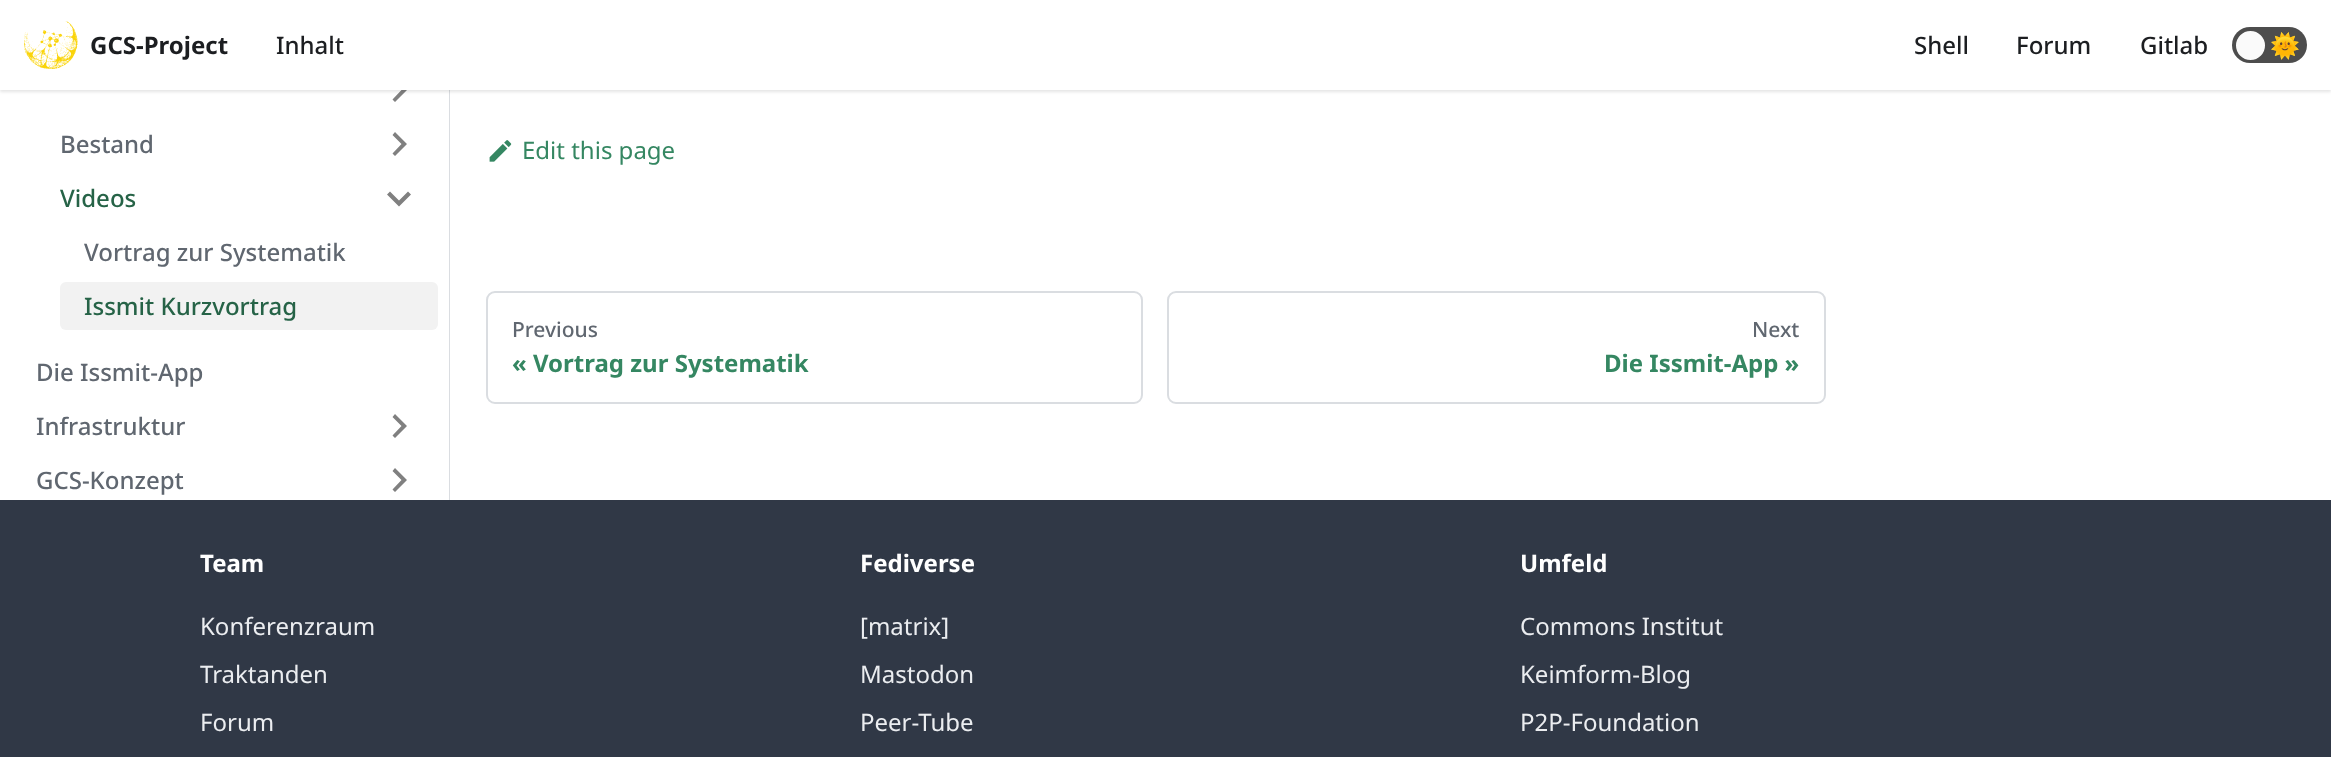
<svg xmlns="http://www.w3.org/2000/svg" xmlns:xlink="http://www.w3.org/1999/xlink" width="2331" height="757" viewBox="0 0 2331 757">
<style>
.cls-1{font:bold 24px Noto Sans;fill:#1c1e21}
.cls-2{font:500 24px Noto Sans;fill:#1c1e21}
.cls-3{font:24px Noto Color Emoji;fill:#1c1e21}
.cls-4{font:500 24px Noto Sans;fill:#606770}
.cls-5{font:500 24px Noto Sans;fill:#266347}
.cls-6{font:24px Noto Sans;fill:#358762}
.cls-7{font:500 21px Noto Sans;fill:#606770}
.cls-8{font:bold 24px Noto Sans;fill:#358762}
.cls-9{font:bold 24px Noto Sans;fill:#ffffff}
.cls-10{font:24px Noto Sans;fill:#ebedf0}
</style>
<rect width="100%" height="100%" fill="#ffffff"/>
<rect fill="#dadde1" x="449" y="90" width="1" height="410"/>
<path fill="#808080" d="M392.5 81L401.5 90L392.5 99.5L395 102L407 90L395 78Z"/>
<rect fill="#000000" fill-opacity="0.1" filter="blur(1.5px)" x="0" y="2" width="2331" height="90"/>
<rect fill="#ffffff" x="0" y="0" width="2331" height="90"/>
<image xlink:href="image0.png" x="24" y="21" width="54" height="48"/>
<rect fill="#4d4d4d" x="2232" y="27" width="75" height="36" rx="18"/>
<circle fill="#fafafa" stroke="#4d4d4d" stroke-width="2" cx="2250.5" cy="45.5" r="15.5"/>
<path fill="#808080" d="M392.5 135L401.5 144L392.5 153.5L395 156L407 144L395 132Z"/>
<path fill="#808080" d="M408 191.5L399 200.5L390 191.5L387 194.5L399 206.5L411 194.5Z"/>
<rect fill="#f2f2f2" x="60" y="282" width="378" height="48" rx="6"/>
<path fill="#808080" d="M392.5 417L401.5 426L392.5 435.5L395 438L407 426L395 414Z"/>
<path fill="#808080" d="M392.5 471L401.5 480L392.5 489.5L395 492L407 480L395 468Z"/>
<image xlink:href="image1.png" x="489" y="140" width="23" height="22"/>
<rect fill="none" stroke="#dadde1" stroke-width="2" x="487" y="292" width="655" height="111" rx="8"/>
<rect fill="none" stroke="#dadde1" stroke-width="2" x="1168" y="292" width="657" height="111" rx="8"/>
<rect fill="#303846" x="0" y="500" width="2331" height="257"/>
<text class="cls-1" x="90" y="54">GCS-Project</text>
<text class="cls-2" x="276" y="54">Inhalt</text>
<text class="cls-2" x="1914" y="54">Shell</text>
<text class="cls-2" x="2016" y="54">Forum</text>
<text class="cls-2" x="2140" y="54">Gitlab</text>
<text class="cls-3" x="2270" y="54">🌞</text>
<text class="cls-4" x="60" y="153">Bestand</text>
<text class="cls-5" x="60" y="207">Videos</text>
<text class="cls-4" x="84" y="261">Vortrag zur Systematik</text>
<text class="cls-5" x="84" y="315">Issmit Kurzvortrag</text>
<text class="cls-4" x="36" y="381">Die Issmit-App</text>
<text class="cls-4" x="36" y="435">Infrastruktur</text>
<text class="cls-4" x="36" y="489">GCS-Konzept</text>
<text class="cls-6" x="522" y="159">Edit this page</text>
<text class="cls-7" x="512" y="337">Previous</text>
<text class="cls-8" x="512" y="372">« Vortrag zur Systematik</text>
<text class="cls-7" x="1752" y="337">Next</text>
<text class="cls-8" x="1604" y="372">Die Issmit-App »</text>
<text class="cls-9" x="200" y="572">Team</text>
<text class="cls-10" x="200" y="635">Konferenzraum</text>
<text class="cls-10" x="200" y="683">Traktanden</text>
<text class="cls-10" x="200" y="731">Forum</text>
<text class="cls-9" x="860" y="572">Fediverse</text>
<text class="cls-10" x="860" y="635">[matrix]</text>
<text class="cls-10" x="860" y="683">Mastodon</text>
<text class="cls-10" x="860" y="731">Peer-Tube</text>
<text class="cls-9" x="1520" y="572">Umfeld</text>
<text class="cls-10" x="1520" y="635">Commons Institut</text>
<text class="cls-10" x="1520" y="683">Keimform-Blog</text>
<text class="cls-10" x="1520" y="731">P2P-Foundation</text>
</svg>
